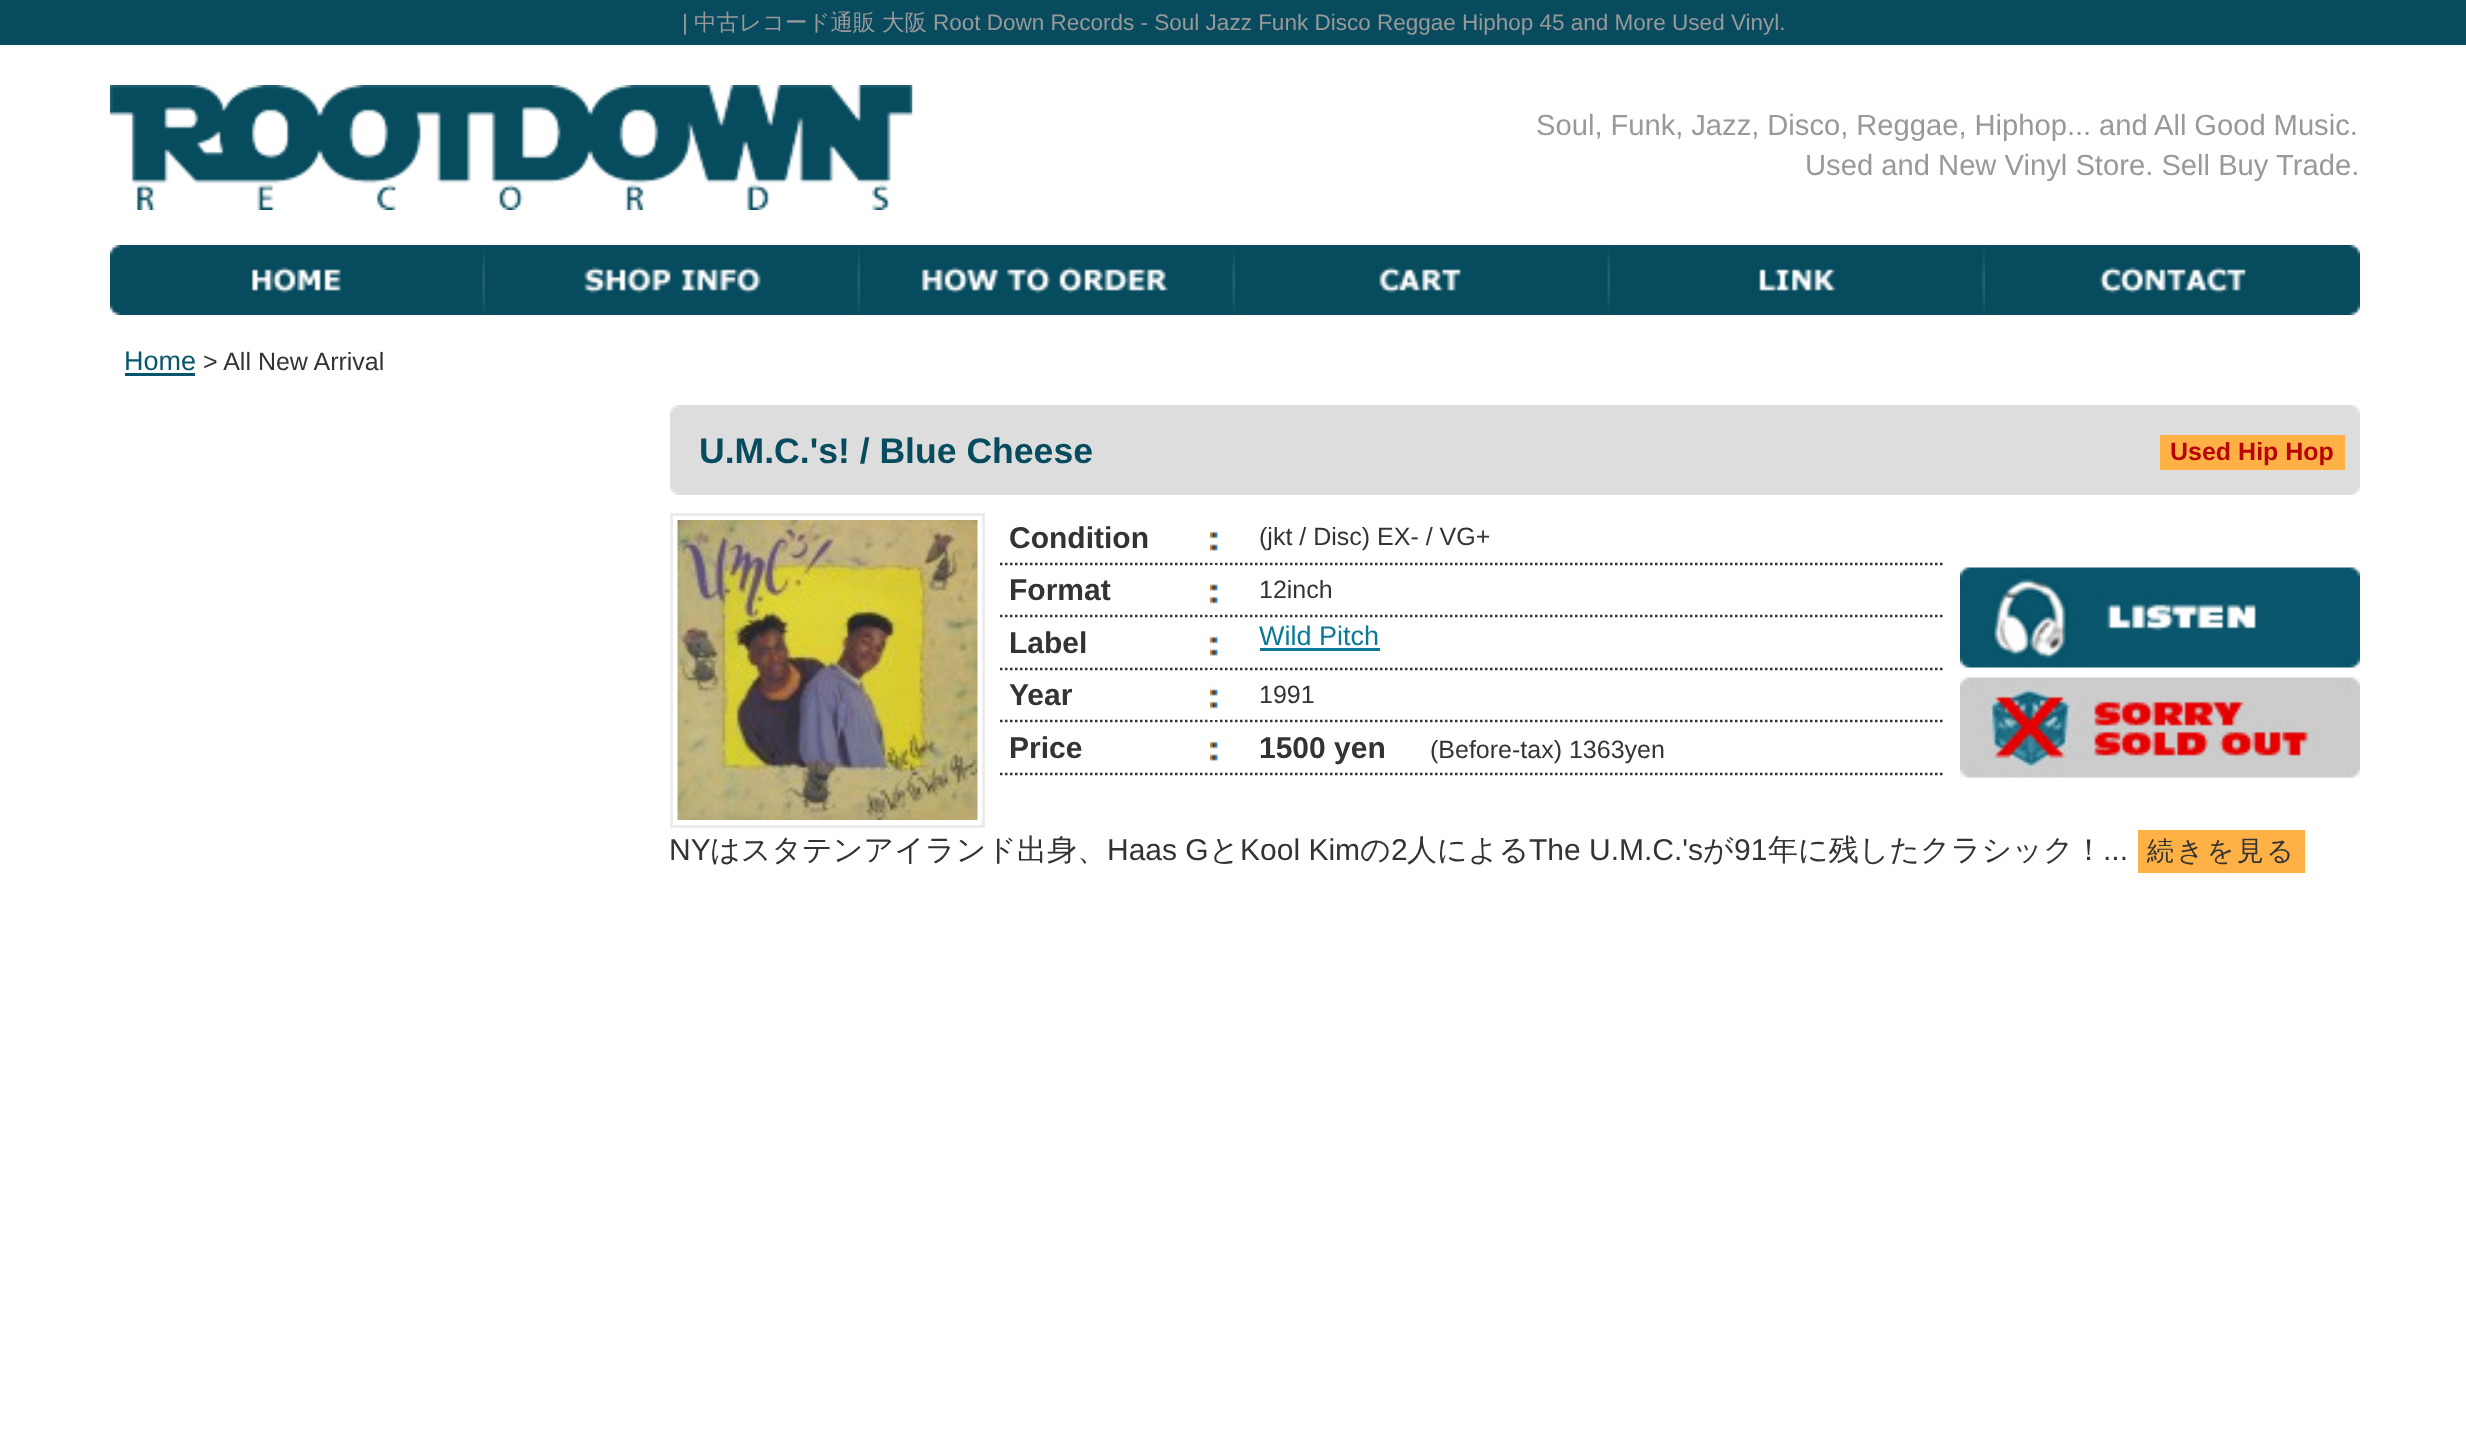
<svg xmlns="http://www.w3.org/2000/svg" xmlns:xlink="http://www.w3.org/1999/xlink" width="2466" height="1435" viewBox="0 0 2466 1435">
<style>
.cls-1{font:22.5px Liberation Sans;fill:#999999}
.cls-2{font:500 22.5px WenQuanYi Zen Hei;fill:#999999}
.cls-3{font:29.2px Liberation Sans;fill:#999999}
.cls-4{font:27px Liberation Sans;fill:#09566c}
.cls-5{font:25px Liberation Sans;fill:#333333}
.cls-6{font:bold 35.6px Liberation Sans;fill:#074b5e}
.cls-7{font:bold 25px Liberation Sans;fill:#b90404}
.cls-8{font:bold 30px Liberation Sans;fill:#333333}
.cls-9{font:27px Liberation Sans;fill:#0b7896}
.cls-10{font:30px Liberation Sans;fill:#333333}
.cls-11{font:500 30px WenQuanYi Zen Hei;fill:#333333}
.cls-12{font:500 27px WenQuanYi Zen Hei;letter-spacing:2.5px;fill:#333333}
</style>
<rect width="100%" height="100%" fill="#ffffff"/>
<rect fill="#084b5e" x="0" y="0" width="2466" height="45"/>
<image xlink:href="image0.png" x="110" y="85" width="803" height="125"/>
<image xlink:href="image1.png" x="110" y="245" width="375" height="70"/>
<image xlink:href="image2.png" x="485" y="245" width="375" height="70"/>
<image xlink:href="image3.png" x="860" y="245" width="375" height="70"/>
<image xlink:href="image4.png" x="1235" y="245" width="375" height="70"/>
<image xlink:href="image5.png" x="1610" y="245" width="375" height="70"/>
<image xlink:href="image6.png" x="1985" y="245" width="375" height="70"/>
<rect fill="#09566c" x="125" y="373" width="70" height="3"/>
<image xlink:href="image7.png" x="670" y="405" width="1690" height="90"/>
<rect fill="#ffb146" x="2160" y="435" width="185" height="35"/>
<rect fill="none" stroke="#ececec" stroke-width="3" x="671.5" y="514.5" width="312" height="312"/>
<image xlink:href="image8.png" x="677" y="520" width="301" height="300"/>
<path fill="none" stroke="#333333" stroke-width="2.5" stroke-dasharray="2.5 2.5" d="M1000 564H1945"/>
<image xlink:href="image9.png" x="1210" y="531" width="8" height="32"/>
<path fill="none" stroke="#333333" stroke-width="2.5" stroke-dasharray="2.5 2.5" d="M1000 616H1945"/>
<image xlink:href="image10.png" x="1210" y="565" width="8" height="50"/>
<path fill="none" stroke="#333333" stroke-width="2.5" stroke-dasharray="2.5 2.5" d="M1000 669H1945"/>
<image xlink:href="image11.png" x="1210" y="617" width="8" height="51"/>
<rect fill="#0b7896" x="1260" y="648" width="120" height="3"/>
<path fill="none" stroke="#333333" stroke-width="2.5" stroke-dasharray="2.5 2.5" d="M1000 721H1945"/>
<image xlink:href="image12.png" x="1210" y="670" width="8" height="50"/>
<path fill="none" stroke="#333333" stroke-width="2.5" stroke-dasharray="2.5 2.5" d="M1000 774H1945"/>
<image xlink:href="image11.png" x="1210" y="722" width="8" height="51"/>
<image xlink:href="image13.png" x="1960" y="567" width="400" height="101"/>
<image xlink:href="image14.png" x="1960" y="677" width="400" height="101"/>
<rect fill="#ffb146" x="2138" y="830" width="167" height="43"/>
<text class="cls-1" x="682" y="30">|</text>
<text class="cls-2" x="694" y="30">中古レコード通販</text>
<text class="cls-2" x="882" y="30">大阪</text>
<text class="cls-1" x="933" y="30">Root Down Records - Soul Jazz Funk Disco Reggae Hiphop 45 and More Used Vinyl.</text>
<text class="cls-3" x="1536" y="135" word-spacing="-0.25">Soul, Funk, Jazz, Disco, Reggae, Hiphop... and All Good Music.</text>
<text class="cls-3" x="1805" y="175">Used and New Vinyl Store. Sell Buy Trade.</text>
<text class="cls-4" x="124" y="370">Home</text>
<text class="cls-5" x="203" y="370">&gt; All New Arrival</text>
<text class="cls-6" x="699" y="463">U.M.C.'s! / Blue Cheese</text>
<text class="cls-7" x="2170" y="460">Used Hip Hop</text>
<text class="cls-8" x="1009" y="548">Condition</text>
<text class="cls-5" x="1259" y="545">(jkt / Disc) EX- / VG+</text>
<text class="cls-8" x="1009" y="600">Format</text>
<text class="cls-5" x="1259" y="598">12inch</text>
<text class="cls-8" x="1009" y="653">Label</text>
<text class="cls-9" x="1259" y="645">Wild Pitch</text>
<text class="cls-8" x="1009" y="705">Year</text>
<text class="cls-5" x="1259" y="703">1991</text>
<text class="cls-8" x="1009" y="758">Price</text>
<text class="cls-8" x="1259" y="758">1500 yen</text>
<text class="cls-5" x="1430" y="758">(Before-tax) 1363yen</text>
<text class="cls-10" x="669" y="860">NY</text>
<text class="cls-11" x="710" y="860">はスタテンアイランド出身、</text>
<text class="cls-10" x="1107" y="860">Haas G</text>
<text class="cls-11" x="1209" y="860">と</text>
<text class="cls-10" x="1240" y="860">Kool Kim</text>
<text class="cls-11" x="1360" y="860">の</text>
<text class="cls-10" x="1391" y="860">2</text>
<text class="cls-11" x="1407" y="860">人による</text>
<text class="cls-10" x="1529" y="860">The U.M.C.'s</text>
<text class="cls-11" x="1703" y="860">が</text>
<text class="cls-10" x="1734" y="860">91</text>
<text class="cls-11" x="1768" y="860">年に残したクラシック！</text>
<text class="cls-10" x="2103" y="860">...</text>
<text class="cls-12" x="2147" y="860">続きを見る</text>
</svg>
